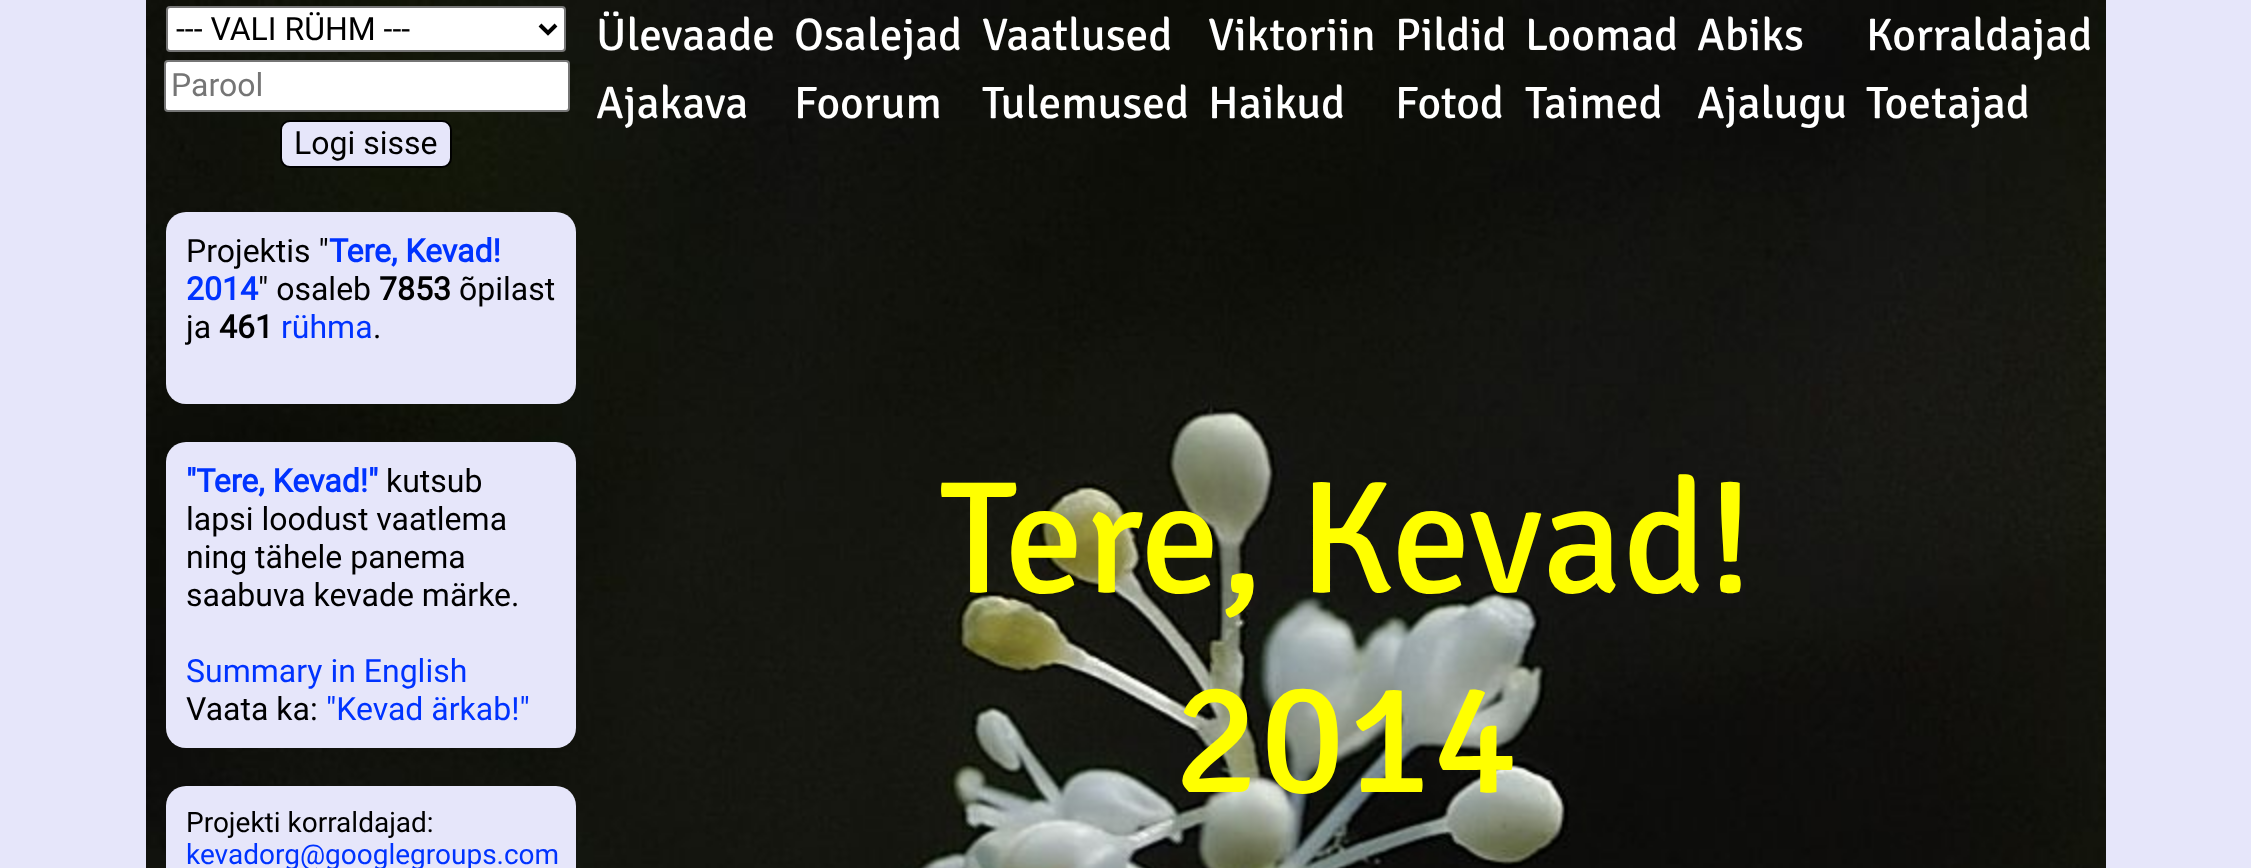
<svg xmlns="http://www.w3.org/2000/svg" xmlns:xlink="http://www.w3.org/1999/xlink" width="2251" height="868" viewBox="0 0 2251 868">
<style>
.cls-1{font:32px Roboto;fill:#000000}
.cls-2{font:32px Roboto;fill:#757575}
.cls-3{font:bold 32px Roboto;fill:#0033ff}
.cls-4{font:bold 32px Roboto;fill:#000000}
.cls-5{font:32px Roboto;fill:#0033ff}
.cls-6{font:28px Roboto;fill:#000000}
.cls-7{font:28px Roboto;fill:#0033ff}
.cls-8{font:300 45.5px Signika;fill:#ffffff}
.cls-9{font:300 160px Signika;fill:#ffff00}
</style>
<rect width="100%" height="100%" fill="#e6e6fa"/>
<image xlink:href="image0.png" x="146" y="0" width="1960" height="868"/>
<rect fill="#ffffff" stroke="#767676" stroke-width="2" x="167" y="7" width="398" height="44" rx="3"/>
<path fill="none" stroke="#000000" stroke-width="4" d="M540 25L548 33L556 25"/>
<rect fill="#ffffff" stroke="#767676" stroke-width="2" x="165" y="61" width="404" height="50" rx="3"/>
<rect fill="#e6e6fa" stroke="#000000" stroke-width="2" x="281" y="121" width="170" height="46" rx="9"/>
<rect fill="#e6e6fa" x="166" y="212" width="410" height="192" rx="20"/>
<rect fill="#e6e6fa" x="166" y="442" width="410" height="306" rx="20"/>
<rect fill="#e6e6fa" x="166" y="786" width="410" height="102" rx="20"/>
<text class="cls-1" x="176" y="40">--- VALI RÜHM ---</text>
<text class="cls-2" x="171" y="96">Parool</text>
<text class="cls-1" x="294" y="154">Logi sisse</text>
<text class="cls-1" x="186" y="262">Projektis "</text>
<text class="cls-3" x="329" y="262">Tere, Kevad!</text>
<text class="cls-3" x="186" y="300">2014</text>
<text class="cls-1" x="258" y="300">" osaleb</text>
<text class="cls-4" x="379" y="300">7853</text>
<text class="cls-1" x="459" y="300">õpilast</text>
<text class="cls-1" x="186" y="338">ja</text>
<text class="cls-4" x="219" y="338">461</text>
<text class="cls-5" x="281" y="338">rühma</text>
<text class="cls-1" x="373" y="338">.</text>
<text class="cls-3" x="186" y="492">"Tere, Kevad!"</text>
<text class="cls-1" x="386" y="492">kutsub</text>
<text class="cls-1"><tspan x="186" y="530">lapsi loodust vaatlema</tspan><tspan x="186" y="568">ning tähele panema</tspan><tspan x="186" y="606">saabuva kevade märke.</tspan></text>
<text class="cls-5" x="186" y="682">Summary in English</text>
<text class="cls-1" x="186" y="720">Vaata ka:</text>
<text class="cls-5" x="326" y="720">"Kevad ärkab!"</text>
<text class="cls-6" x="186" y="832">Projekti korraldajad:</text>
<text class="cls-7" x="186" y="864">kevadorg@googlegroups.com</text>
<text class="cls-8" x="596" y="50">Ülevaade</text>
<text class="cls-8" x="794" y="50">Osalejad</text>
<text class="cls-8" x="982" y="50">Vaatlused</text>
<text class="cls-8" x="1208" y="50">Viktoriin</text>
<text class="cls-8" x="1395" y="50">Pildid</text>
<text class="cls-8" x="1525" y="50">Loomad</text>
<text class="cls-8" x="1697" y="50">Abiks</text>
<text class="cls-8" x="1866" y="50">Korraldajad</text>
<text class="cls-8" x="596" y="118">Ajakava</text>
<text class="cls-8" x="794" y="118">Foorum</text>
<text class="cls-8" x="982" y="118">Tulemused</text>
<text class="cls-8" x="1208" y="118">Haikud</text>
<text class="cls-8" x="1395" y="118">Fotod</text>
<text class="cls-8" x="1525" y="118">Taimed</text>
<text class="cls-8" x="1697" y="118">Ajalugu</text>
<text class="cls-8" x="1866" y="118">Toetajad</text>
<text class="cls-9" x="939" y="592">Tere, Kevad!</text>
<text class="cls-9" x="1173" y="792">2014</text>
</svg>
